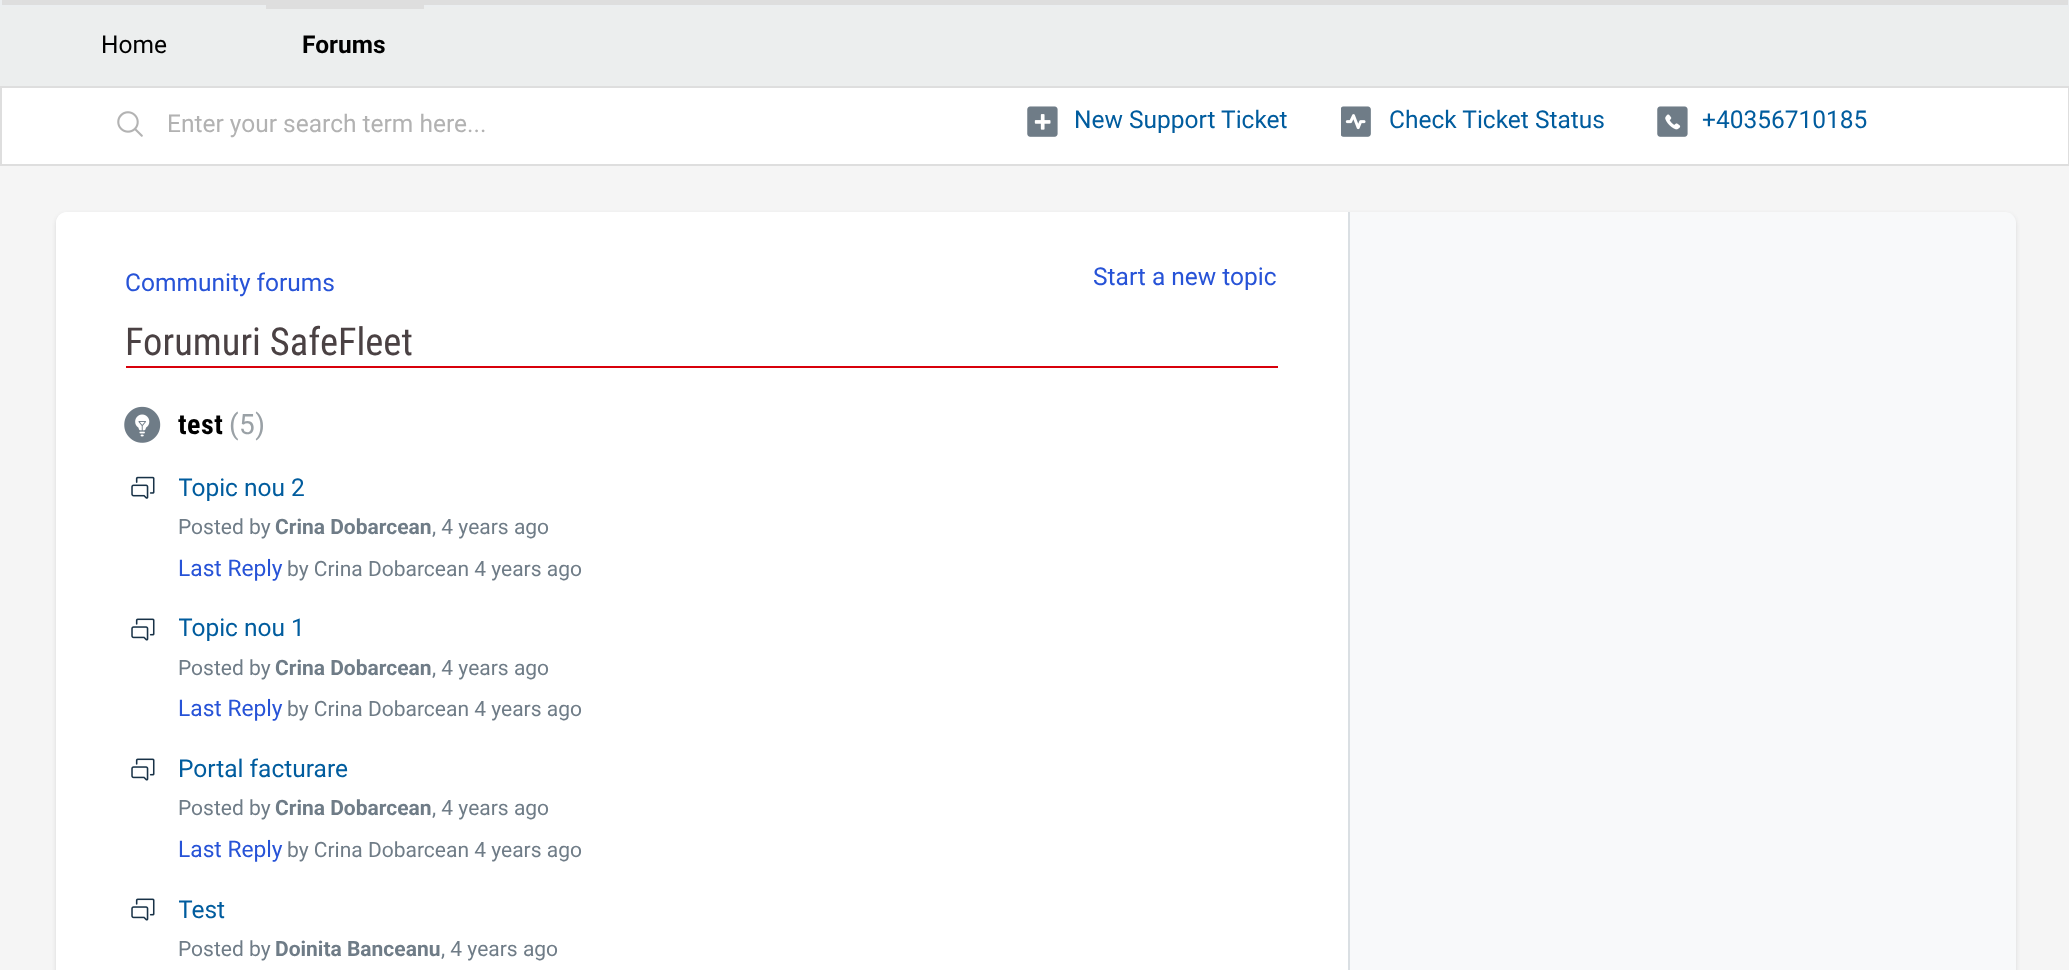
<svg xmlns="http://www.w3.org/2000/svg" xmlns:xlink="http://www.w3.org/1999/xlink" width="2069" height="970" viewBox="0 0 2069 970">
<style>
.cls-1{font:24.5px Roboto;fill:#000000}
.cls-2{font:bold 24.5px Roboto;fill:#000000}
.cls-3{font:24.5px Roboto;fill:#b2b2b2}
.cls-4{font:24.5px Roboto;fill:#005c9e}
.cls-5{font:24.5px Roboto;fill:#2753d7}
.cls-6{font:38.5px Roboto Condensed;fill:#4a4143}
.cls-7{font:bold 28px Roboto Condensed;letter-spacing:0.5px;fill:#000000}
.cls-8{font:28px Roboto;letter-spacing:0.5px;fill:#9aa1a6}
.cls-9{font:21px Roboto;fill:#6f7c87}
.cls-10{font:bold 21px Roboto;fill:#6f7c87}
.cls-11{font:22.75px Roboto;fill:#2753d7}
</style>
<defs>
<clipPath id="clip1"><rect x="179" y="467" width="476" height="41"/></clipPath>
<clipPath id="clip2"><rect x="179" y="609" width="476" height="40"/></clipPath>
<clipPath id="clip3"><rect x="179" y="889" width="476" height="40"/></clipPath>
</defs>
<rect width="100%" height="100%" fill="#f5f5f5"/>
<rect fill="#dedede" stroke="#ebeef0" stroke-width="2" x="1" y="-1" width="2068" height="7"/>
<rect fill="#eceeee" x="0" y="7" width="2069" height="79"/>
<rect fill="#dedede" x="266" y="5" width="158" height="4"/>
<rect fill="#ffffff" stroke="#dedede" stroke-width="2" x="1" y="87" width="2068" height="78"/>
<image xlink:href="image0.png" x="117" y="111" width="26" height="26"/>
<image xlink:href="image1.png" x="1027" y="106" width="31" height="31"/>
<image xlink:href="image2.png" x="1341" y="106" width="30" height="31"/>
<image xlink:href="image3.png" x="1657" y="106" width="31" height="31"/>
<rect fill="#3f3f44" fill-opacity="0.15" filter="blur(2px)" x="56" y="214" width="1960" height="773" rx="11"/>
<rect fill="#f8f9fa" x="56" y="212" width="1960" height="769" rx="11"/>
<path fill="#ffffff" d="M67 212H1349V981H67C61 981 56 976 56 970V223C56 217 61 212 67 212Z"/>
<rect fill="#dadfe3" x="1348" y="212" width="2" height="758"/>
<rect fill="#d8000b" x="126" y="366" width="1152" height="2"/>
<image xlink:href="image4.png" x="124" y="406" width="37" height="37"/>
<image xlink:href="image5.png" x="131" y="476" width="24" height="23"/>
<image xlink:href="image6.png" x="131" y="618" width="24" height="23"/>
<image xlink:href="image6.png" x="131" y="758" width="24" height="23"/>
<image xlink:href="image6.png" x="131" y="898" width="24" height="23"/>
<text class="cls-1" x="101" y="53">Home</text>
<text class="cls-2" x="302" y="53">Forums</text>
<text class="cls-3" x="167" y="132">Enter your search term here...</text>
<text class="cls-4" x="1074" y="128">New Support Ticket</text>
<text class="cls-4" x="1389" y="128">Check Ticket Status</text>
<text class="cls-4" x="1702" y="128">+40356710185</text>
<text class="cls-5" x="125" y="291">Community forums</text>
<text class="cls-5" x="1093" y="285">Start a new topic</text>
<text class="cls-6" x="125" y="355">Forumuri SafeFleet</text>
<text class="cls-7" x="178" y="434">test</text>
<text class="cls-8" x="229" y="434">(5)</text>
<g clip-path="url(#clip1)">
<text class="cls-4" x="178" y="496">Topic nou 2</text>
</g>
<text class="cls-9" x="178" y="534">Posted by</text>
<text class="cls-10" x="275" y="534">Crina Dobarcean</text>
<text class="cls-9" x="432" y="534">, 4 years ago</text>
<text class="cls-11" x="178" y="576">Last Reply</text>
<text class="cls-9" x="287" y="576">by Crina Dobarcean 4 years ago</text>
<g clip-path="url(#clip2)">
<text class="cls-4" x="178" y="636">Topic nou 1</text>
</g>
<text class="cls-9" x="178" y="675">Posted by</text>
<text class="cls-10" x="275" y="675">Crina Dobarcean</text>
<text class="cls-9" x="432" y="675">, 4 years ago</text>
<text class="cls-11" x="178" y="716">Last Reply</text>
<text class="cls-9" x="287" y="716">by Crina Dobarcean 4 years ago</text>
<text class="cls-4" x="178" y="777">Portal facturare</text>
<text class="cls-9" x="178" y="815">Posted by</text>
<text class="cls-10" x="275" y="815">Crina Dobarcean</text>
<text class="cls-9" x="432" y="815">, 4 years ago</text>
<text class="cls-11" x="178" y="857">Last Reply</text>
<text class="cls-9" x="287" y="857">by Crina Dobarcean 4 years ago</text>
<g clip-path="url(#clip3)">
<text class="cls-4" x="178" y="918">Test</text>
</g>
<text class="cls-9" x="178" y="956">Posted by</text>
<text class="cls-10" x="275" y="956">Doinita Banceanu</text>
<text class="cls-9" x="441" y="956">, 4 years ago</text>
</svg>
